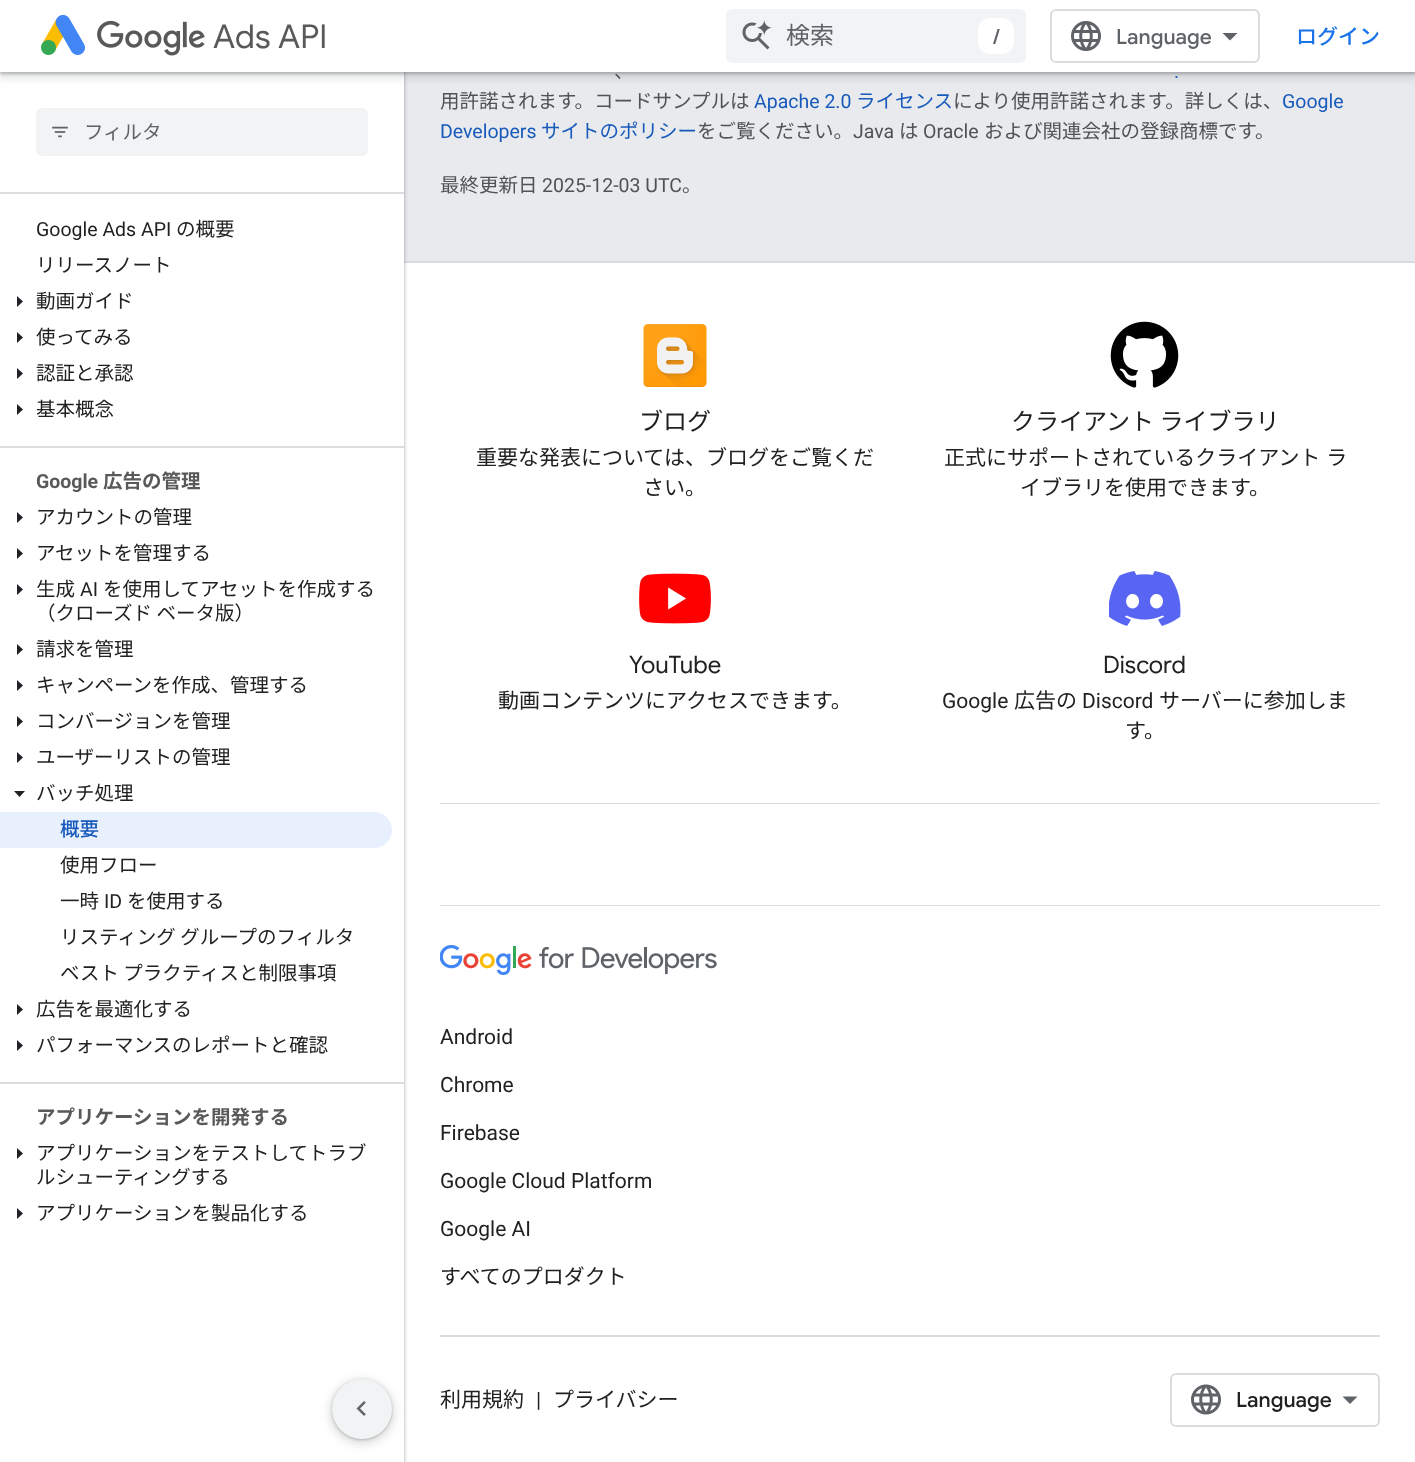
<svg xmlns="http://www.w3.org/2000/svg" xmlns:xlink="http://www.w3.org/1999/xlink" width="1415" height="1462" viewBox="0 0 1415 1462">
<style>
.cls-1{font:33px Google Sans;fill:#595959}
.cls-2{font:24px Noto Sans JP;fill:#5f6368}
.cls-3{font:500 21px Google Sans;fill:#5f6368}
.cls-4{font:500 21px Noto Sans JP;fill:#1a73e8}
.cls-5{font:19.5px Noto Sans JP;fill:#5f6368}
.cls-6{font:19.5px Roboto;fill:#212121}
.cls-7{font:19.5px Noto Sans JP;fill:#212121}
.cls-8{font:bold 19.5px Roboto;fill:#595959}
.cls-9{font:bold 19.5px Noto Sans JP;fill:#595959}
.cls-10{font:500 19.5px Noto Sans JP;fill:#185abc}
.cls-11{font:19.5px Noto Sans JP;fill:#515253}
.cls-12{font:19.5px Roboto;fill:#185abc}
.cls-13{font:19.5px Noto Sans JP;fill:#185abc}
.cls-14{font:19.5px Roboto;fill:#515253}
.cls-15{font:24px Noto Sans JP;fill:#212121}
.cls-16{font:21px Noto Sans JP;fill:#212121}
.cls-17{font:24px Google Sans;fill:#212121}
.cls-18{font:21px Roboto;fill:#212121}
.cls-19{font:500 21px Google Sans;fill:#212121}
</style>
<rect width="100%" height="100%" fill="#e8eaed"/>
<rect fill="#ffffff" x="404" y="263" width="1011" height="1199"/>
<rect fill="#dadce0" x="404" y="261" width="1011" height="2"/>
<rect fill="#3c4043" fill-opacity="0.15" filter="blur(2px)" x="-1" y="0" width="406" height="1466"/>
<rect fill="#3c4043" fill-opacity="0.3" filter="blur(1.5px)" x="0" y="2" width="404" height="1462"/>
<rect fill="#ffffff" x="0" y="72" width="404" height="1390"/>
<rect fill="#3c4043" fill-opacity="0.15" filter="blur(4.5px)" x="-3" y="0" width="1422" height="78"/>
<rect fill="#3c4043" fill-opacity="0.3" filter="blur(1.5px)" x="0" y="2" width="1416" height="72"/>
<rect fill="#ffffff" x="0" y="0" width="1415" height="72"/>
<image xlink:href="image0.png" x="41" y="14" width="44" height="41"/>
<image xlink:href="image1.png" x="97" y="20" width="108" height="36"/>
<rect fill="#f1f3f4" x="726" y="9" width="300" height="54" rx="6"/>
<image xlink:href="image2.png" x="742" y="20" width="30" height="30"/>
<rect fill="#ffffff" x="978" y="18" width="36" height="36" rx="12"/>
<rect fill="none" stroke="#dadce0" stroke-width="2" x="1051" y="10" width="208" height="52" rx="5"/>
<image xlink:href="image3.png" x="1071" y="21" width="30" height="30"/>
<path fill="#5f6368" d="M1230 40.5L1222.5 33H1237.5Z"/>
<rect fill="#dadce0" x="0" y="192" width="404" height="2"/>
<rect fill="#f1f3f4" x="36" y="108" width="332" height="48" rx="6"/>
<image xlink:href="image4.png" x="52" y="126" width="16" height="12"/>
<path fill="#202124" d="M17 307V296L23 301.5Z"/>
<path fill="#202124" d="M17 343V332L23 337.5Z"/>
<path fill="#202124" d="M17 379V368L23 373.5Z"/>
<path fill="#202124" d="M17 415V404L23 409.5Z"/>
<rect fill="#dadce0" x="0" y="446" width="404" height="2"/>
<path fill="#202124" d="M17 523V512L23 517.5Z"/>
<path fill="#202124" d="M17 559V548L23 553.5Z"/>
<path fill="#202124" d="M17 595V584L23 589.5Z"/>
<path fill="#202124" d="M17 655V644L23 649.5Z"/>
<path fill="#202124" d="M17 691V680L23 685.5Z"/>
<path fill="#202124" d="M17 727V716L23 721.5Z"/>
<path fill="#202124" d="M17 763V752L23 757.5Z"/>
<path fill="#202124" d="M14 791H25L19.5 797Z"/>
<path fill="#e8f0fe" d="M0 812H374C384 812 392 820 392 830C392 840 384 848 374 848H0Z"/>
<path fill="#202124" d="M17 1015V1004L23 1009.5Z"/>
<path fill="#202124" d="M17 1051V1040L23 1045.5Z"/>
<rect fill="#dadce0" x="0" y="1082" width="404" height="2"/>
<path fill="#202124" d="M17 1159V1148L23 1153.5Z"/>
<path fill="#202124" d="M17 1219V1208L23 1213.5Z"/>
<rect fill="#dadce0" x="440" y="803" width="940" height="1"/>
<image xlink:href="image5.png" x="643" y="324" width="64" height="63"/>
<image xlink:href="image6.png" x="1110" y="321" width="69" height="67"/>
<image xlink:href="image7.png" x="639" y="573" width="72" height="51"/>
<image xlink:href="image8.png" x="1109" y="571" width="72" height="55"/>
<rect fill="#dadce0" x="440" y="905" width="940" height="1"/>
<rect fill="#dadce0" x="440" y="1335" width="940" height="2"/>
<image xlink:href="image9.png" x="440" y="945" width="277" height="30"/>
<rect fill="none" stroke="#dadce0" stroke-width="2" x="1171" y="1374" width="208" height="52" rx="5"/>
<image xlink:href="image10.png" x="1191" y="1384" width="30" height="31"/>
<path fill="#5f6368" d="M1350 1404L1342.5 1396.5H1357.5Z"/>
<rect fill="#3c4043" fill-opacity="0.15" filter="blur(4.5px)" x="329" y="1379" width="66" height="66" rx="33"/>
<rect fill="#3c4043" fill-opacity="0.3" filter="blur(1.5px)" x="332" y="1380" width="60" height="60" rx="30"/>
<circle fill="#f1f3f4" cx="362" cy="1409" r="30"/>
<image xlink:href="image11.png" x="356" y="1401" width="10" height="15"/>
<text class="cls-1" x="213" y="48">Ads API</text>
<text class="cls-2" x="786" y="44">検索</text>
<text class="cls-3" x="993" y="44">/</text>
<text class="cls-3" x="1116" y="44">Language</text>
<text class="cls-4" x="1296" y="44">ログイン</text>
<text class="cls-5" x="84" y="139">フィルタ</text>
<text class="cls-6" x="36" y="236">Google Ads API</text>
<text class="cls-7" x="176" y="236">の概要</text>
<text class="cls-7"><tspan x="36" y="272">リリースノート</tspan><tspan x="36" y="308">動画ガイド</tspan><tspan x="36" y="344">使ってみる</tspan><tspan x="36" y="380">認証と承認</tspan><tspan x="36" y="416">基本概念</tspan></text>
<text class="cls-8" x="36" y="488">Google</text>
<text class="cls-9" x="103" y="488">広告の管理</text>
<text class="cls-7"><tspan x="36" y="524">アカウントの管理</tspan><tspan x="36" y="560">アセットを管理する</tspan><tspan x="36" y="596">生成</tspan></text>
<text class="cls-6" x="80" y="596">AI</text>
<text class="cls-7" x="103" y="596">を使用してアセットを作成する</text>
<text class="cls-7"><tspan x="36" y="620">（クローズド ベータ版）</tspan><tspan x="36" y="656">請求を管理</tspan><tspan x="36" y="692">キャンペーンを作成、管理する</tspan><tspan x="36" y="728">コンバージョンを管理</tspan><tspan x="36" y="764">ユーザーリストの管理</tspan><tspan x="36" y="800">バッチ処理</tspan></text>
<text class="cls-10" x="60" y="836">概要</text>
<text class="cls-7"><tspan x="60" y="872">使用フロー</tspan><tspan x="60" y="908">一時</tspan></text>
<text class="cls-6" x="104" y="908">ID</text>
<text class="cls-7" x="127" y="908">を使用する</text>
<text class="cls-7"><tspan x="60" y="944">リスティング グループのフィルタ</tspan><tspan x="60" y="980">ベスト プラクティスと制限事項</tspan></text>
<text class="cls-7"><tspan x="36" y="1016">広告を最適化する</tspan><tspan x="36" y="1052">パフォーマンスのレポートと確認</tspan></text>
<text class="cls-9" x="36" y="1124">アプリケーションを開発する</text>
<text class="cls-7"><tspan x="36" y="1160">アプリケーションをテストしてトラブ</tspan><tspan x="36" y="1184">ルシューティングする</tspan><tspan x="36" y="1220">アプリケーションを製品化する</tspan></text>
<text class="cls-11" x="614" y="78">、</text>
<text class="cls-12" x="1174" y="78">.</text>
<text class="cls-11" x="440" y="108">用許諾されます。コードサンプルは</text>
<text class="cls-12" x="754" y="108">Apache 2.0</text>
<text class="cls-13" x="856" y="108">ライセンス</text>
<text class="cls-11" x="953" y="108">により使用許諾されます。詳しくは、</text>
<text class="cls-12" x="1282" y="108">Google</text>
<text class="cls-12" x="440" y="138">Developers</text>
<text class="cls-13" x="541" y="138">サイトのポリシー</text>
<text class="cls-11" x="697" y="138">をご覧ください。</text>
<text class="cls-14" x="853" y="138">Java</text>
<text class="cls-11" x="899" y="138">は</text>
<text class="cls-14" x="923" y="138">Oracle</text>
<text class="cls-11" x="984" y="138">および関連会社の登録商標です。</text>
<text class="cls-11" x="440" y="192">最終更新日</text>
<text class="cls-14" x="542" y="192">2025-12-03 UTC</text>
<text class="cls-11" x="682" y="192">。</text>
<text class="cls-15" x="639" y="430">ブログ</text>
<text class="cls-16" x="476" y="465">重要な発表については、ブログをご覧くだ</text>
<text class="cls-16" x="643" y="495">さい。</text>
<text class="cls-15" x="1011" y="430">クライアント ライブラリ</text>
<text class="cls-16" x="944" y="465" word-spacing="1">正式にサポートされているクライアント ラ</text>
<text class="cls-16" x="1020" y="495">イブラリを使用できます。</text>
<text class="cls-17" x="629" y="673">YouTube</text>
<text class="cls-16" x="498" y="708">動画コンテンツにアクセスできます。</text>
<text class="cls-17" x="1103" y="673">Discord</text>
<text class="cls-18" x="942" y="708">Google</text>
<text class="cls-16" x="1014" y="708">広告の</text>
<text class="cls-18" x="1082" y="708">Discord</text>
<text class="cls-16" x="1159" y="708">サーバーに参加しま</text>
<text class="cls-16" x="1125" y="738">す。</text>
<text class="cls-18" x="440" y="1044">Android</text>
<text class="cls-18" x="440" y="1092">Chrome</text>
<text class="cls-18" x="440" y="1140">Firebase</text>
<text class="cls-18" x="440" y="1188">Google Cloud Platform</text>
<text class="cls-18" x="440" y="1236">Google AI</text>
<text class="cls-16" x="440" y="1284">すべてのプロダクト</text>
<text class="cls-16" x="440" y="1407">利用規約</text>
<text class="cls-18" x="536" y="1407">|</text>
<text class="cls-16" x="553" y="1407">プライバシー</text>
<text class="cls-19" x="1236" y="1407">Language</text>
</svg>
